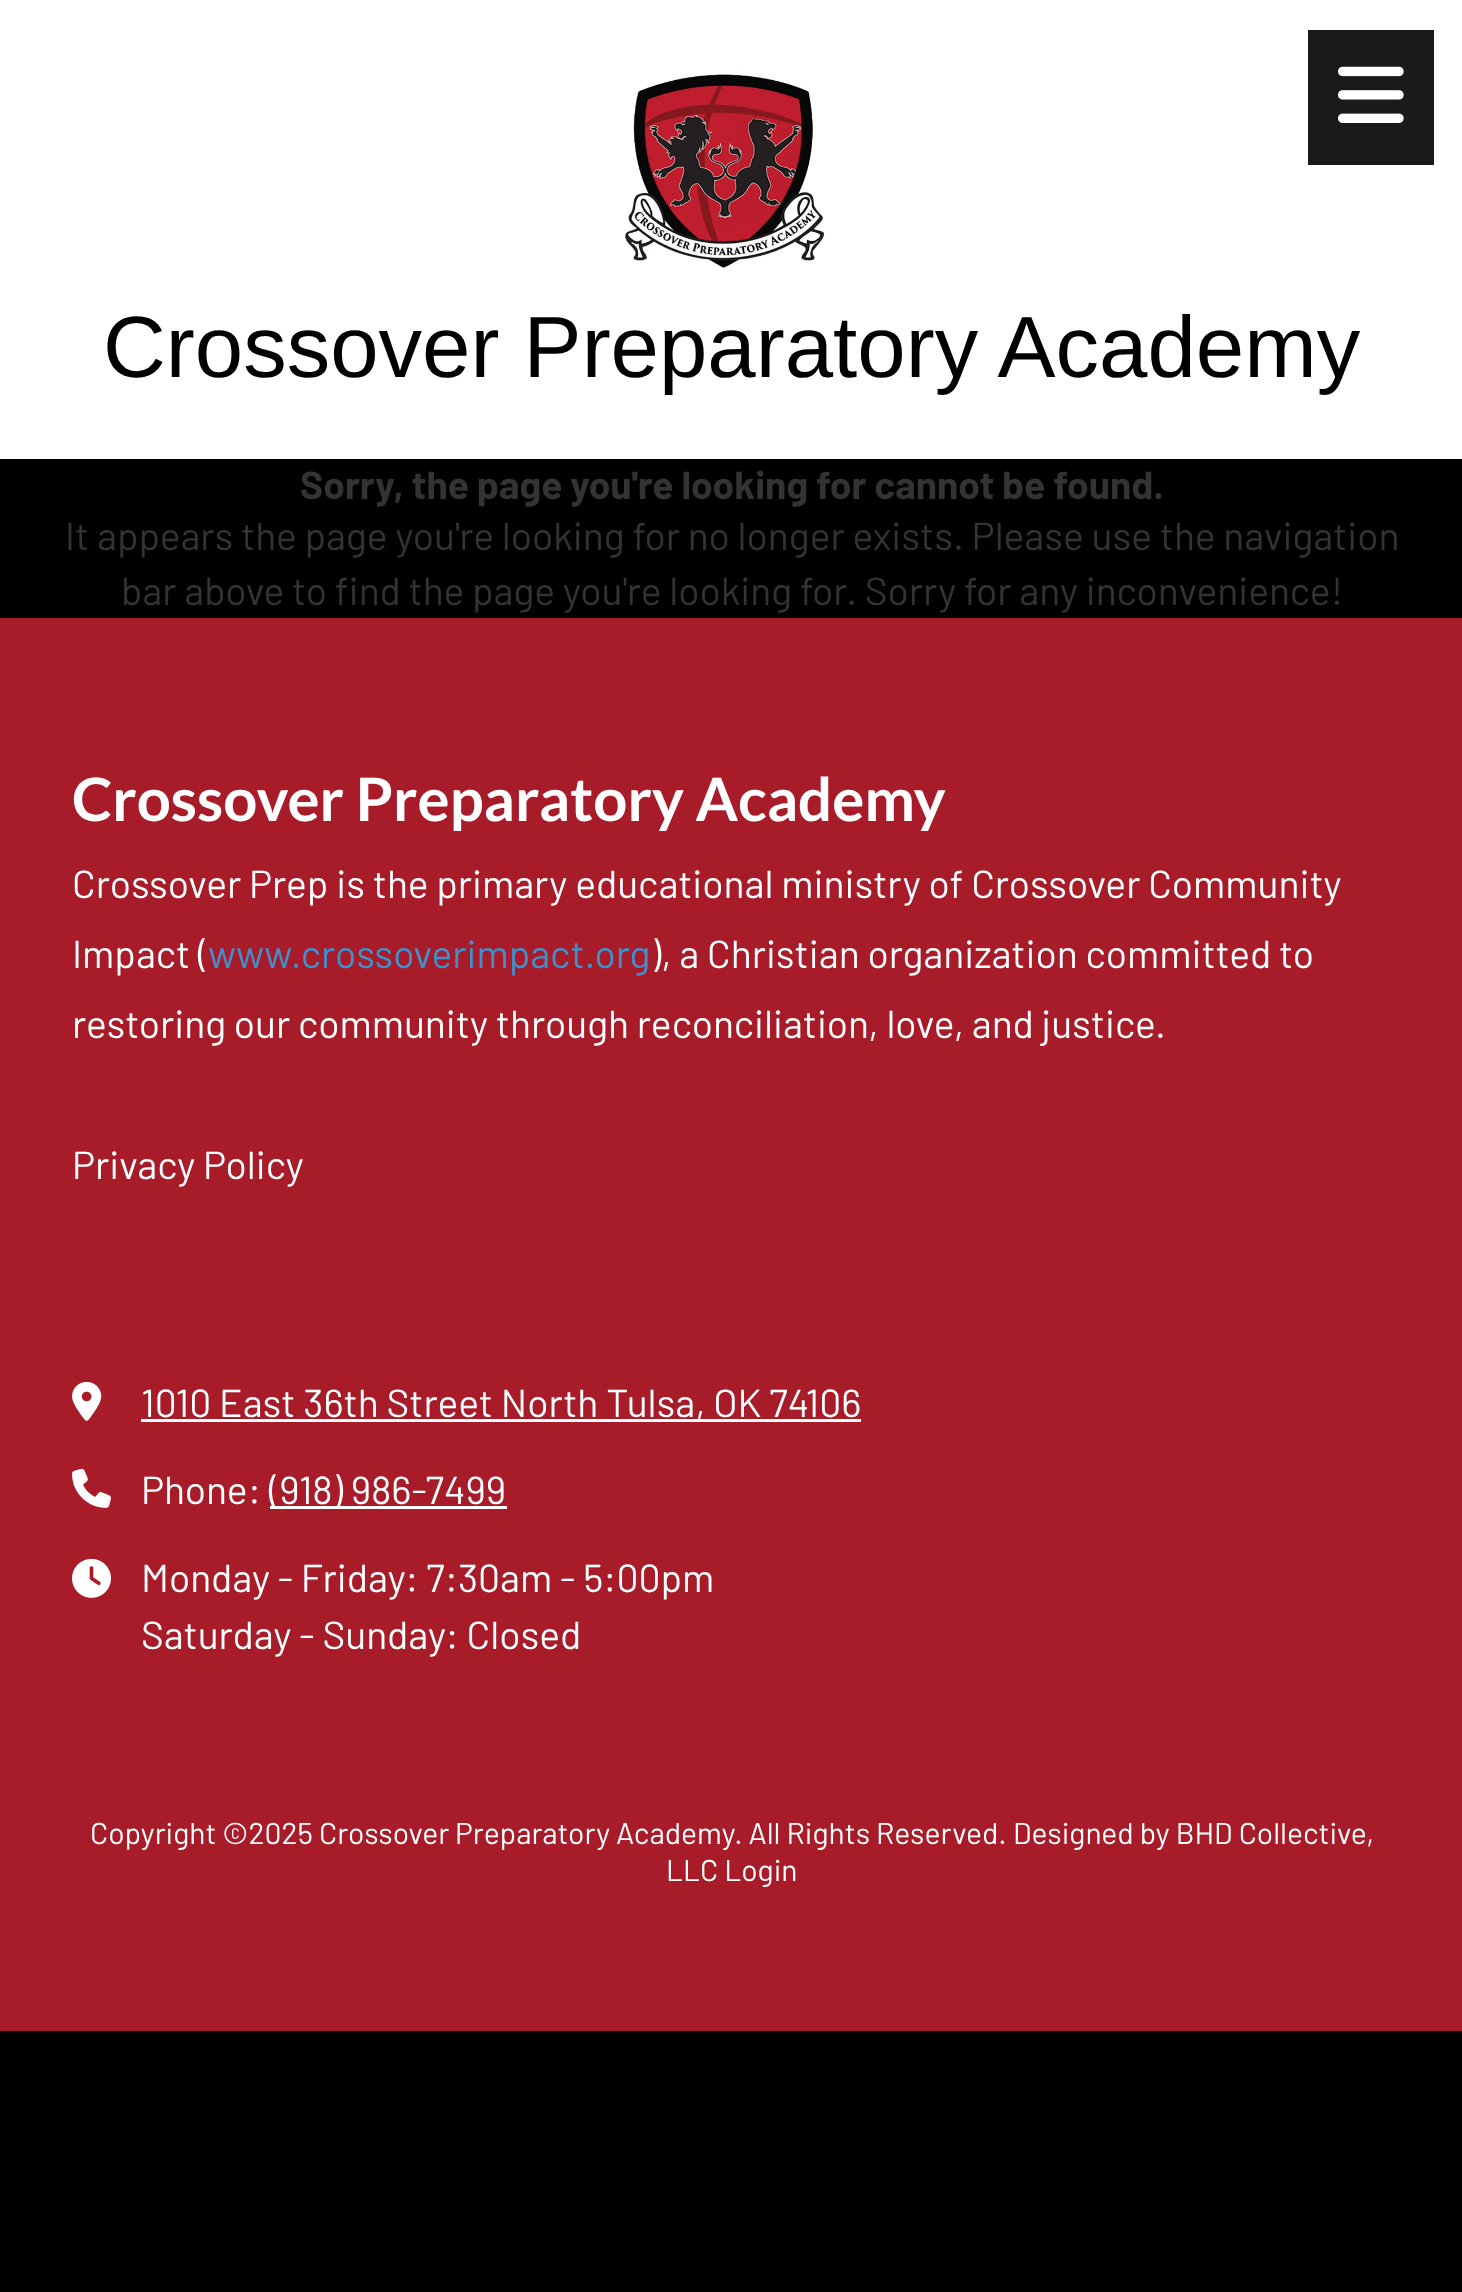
<svg xmlns="http://www.w3.org/2000/svg" xmlns:xlink="http://www.w3.org/1999/xlink" width="1462" height="2292" viewBox="0 0 1462 2292">
<style>
.cls-1{font:87px Arimo;fill:#000000}
.cls-2{font:bold 39px Barlow;fill:#333333}
.cls-3{font:39px Barlow;fill:#333333}
.cls-4{font:bold 60px Lato;fill:#ffffff}
.cls-5{font:39px Barlow;fill:#ffffff}
.cls-6{font:39px Barlow;fill:#4090cd}
.cls-7{font:30px Barlow;fill:#ffffff}
</style>
<rect width="100%" height="100%" fill="#000000"/>
<rect fill="#ffffff" x="0" y="0" width="1462" height="459"/>
<rect fill="#1a1a1a" x="1308" y="30" width="126" height="135"/>
<image xlink:href="image0.png" x="1338" y="66" width="66" height="57"/>
<image xlink:href="image1.png" x="625" y="68" width="200" height="200"/>
<rect fill="#a81c29" x="0" y="618" width="1462" height="1413"/>
<image xlink:href="image2.png" x="72" y="1381" width="30" height="40"/>
<rect fill="#ffffff" x="141" y="1419" width="720" height="3"/>
<image xlink:href="image3.png" x="72" y="1468" width="39" height="40"/>
<rect fill="#ffffff" x="270" y="1506" width="237" height="3"/>
<image xlink:href="image4.png" x="72" y="1558" width="39" height="40"/>
<text class="cls-1" x="103" y="377">Crossover Preparatory Academy</text>
<text class="cls-2" x="300" y="499">Sorry, the page you're looking for cannot be found.</text>
<text class="cls-3" x="65" y="550">It appears the page you're looking for no longer exists. Please use the navigation</text>
<text class="cls-3" x="121" y="605">bar above to find the page you're looking for. Sorry for any inconvenience!</text>
<text class="cls-4" x="72" y="821">Crossover Preparatory Academy</text>
<text class="cls-5"><tspan x="72" y="898">Crossover Prep is the primary educational ministry of Crossover Community</tspan><tspan x="72" y="968">Impact (</tspan></text>
<text class="cls-6" x="208" y="968">www.crossoverimpact.org</text>
<text class="cls-5" x="651" y="968">), a Christian organization committed to</text>
<text class="cls-5" x="72" y="1038">restoring our community through reconciliation, love, and justice.</text>
<text class="cls-5" x="72" y="1179">Privacy Policy</text>
<text class="cls-5" x="141" y="1417">1010 East 36th Street North Tulsa, OK 74106</text>
<text class="cls-5" x="141" y="1504">Phone:</text>
<text class="cls-5" x="269" y="1504">(918) 986-7499</text>
<text class="cls-5"><tspan x="141" y="1592">Monday - Friday: 7:30am - 5:00pm</tspan><tspan x="141" y="1649">Saturday - Sunday: Closed</tspan></text>
<text class="cls-7" x="90" y="1844">Copyright ©2025 Crossover Preparatory Academy. All Rights Reserved.</text>
<text class="cls-7" x="1013" y="1844">Designed by BHD Collective,</text>
<text class="cls-7" x="666" y="1881">LLC Login</text>
</svg>
